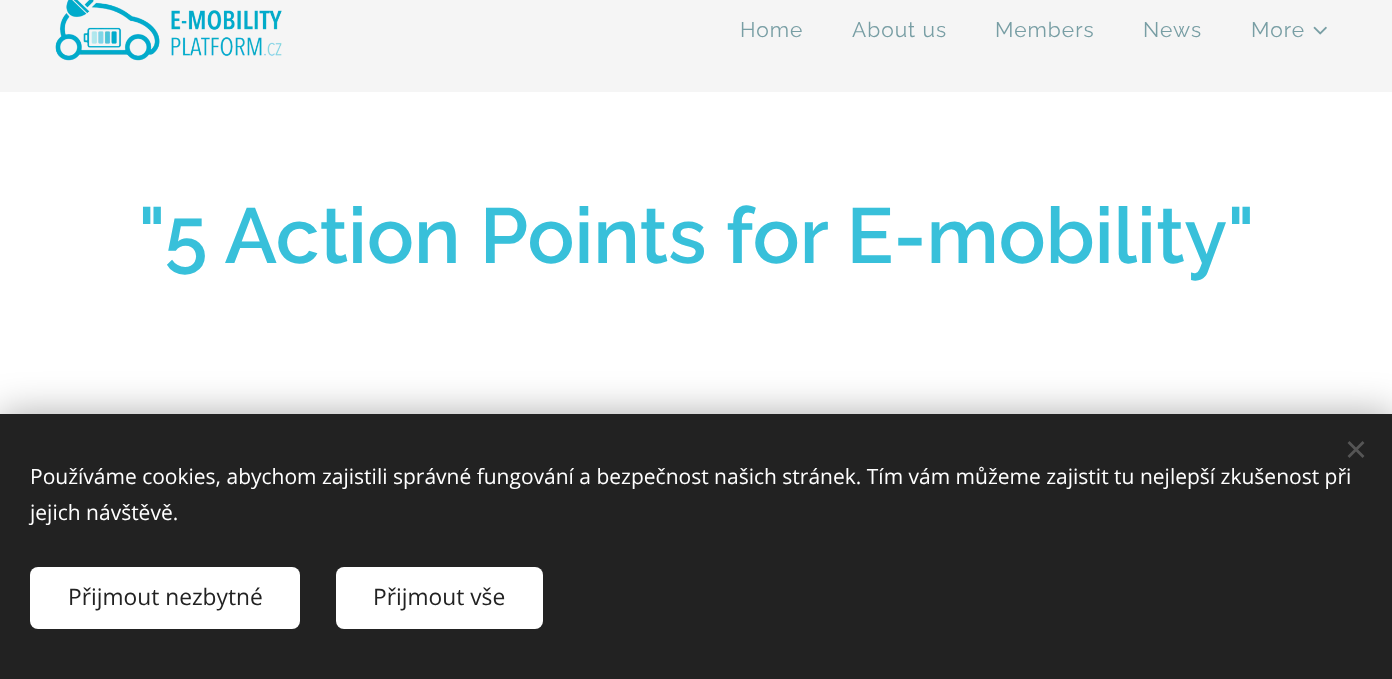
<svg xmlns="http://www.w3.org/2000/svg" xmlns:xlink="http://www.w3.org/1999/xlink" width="1392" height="679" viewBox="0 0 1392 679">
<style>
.cls-1{font:21px Raleway;letter-spacing:1px;fill:#789ea4}
.cls-2{font:600 78px Raleway;fill:#38c0da}
.cls-3{font:21px Open Sans;fill:#ffffff}
.cls-4{font:22.75px Open Sans;fill:#222222}
</style>
<rect width="100%" height="100%" fill="#ffffff"/>
<rect fill="#f5f5f5" x="0" y="0" width="1392" height="92"/>
<image xlink:href="image0.png" x="55" y="0" width="227" height="61"/>
<image xlink:href="image1.png" x="1313" y="26" width="14" height="9"/>
<rect fill="#000000" fill-opacity="0.33" filter="blur(19px)" x="0" y="414" width="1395" height="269"/>
<rect fill="#222222" x="0" y="414" width="1392" height="265"/>
<path fill="#555555" d="M1347.5 456L1362.5 441L1364.5 443L1349.5 458Z"/>
<path fill="#555555" d="M1349.5 441L1364.5 456L1362.5 458L1347.5 443Z"/>
<rect fill="#ffffff" x="30" y="567" width="270" height="62" rx="8"/>
<rect fill="#ffffff" x="336" y="567" width="207" height="62" rx="8"/>
<text class="cls-1" x="740" y="37">Home</text>
<text class="cls-1" x="852" y="37">About us</text>
<text class="cls-1" x="995" y="37">Members</text>
<text class="cls-1" x="1143" y="37">News</text>
<text class="cls-1" x="1251" y="37">More</text>
<text class="cls-2" x="138" y="263">"5 Action Points for E-mobility"</text>
<text class="cls-3"><tspan x="30" y="484">Používáme cookies, abychom zajistili správné fungování a bezpečnost našich stránek. Tím vám můžeme zajistit tu nejlepší zkušenost při</tspan><tspan x="30" y="520">jejich návštěvě.</tspan></text>
<text class="cls-4" x="68" y="605">Přijmout nezbytné</text>
<text class="cls-4" x="373" y="605">Přijmout vše</text>
</svg>
